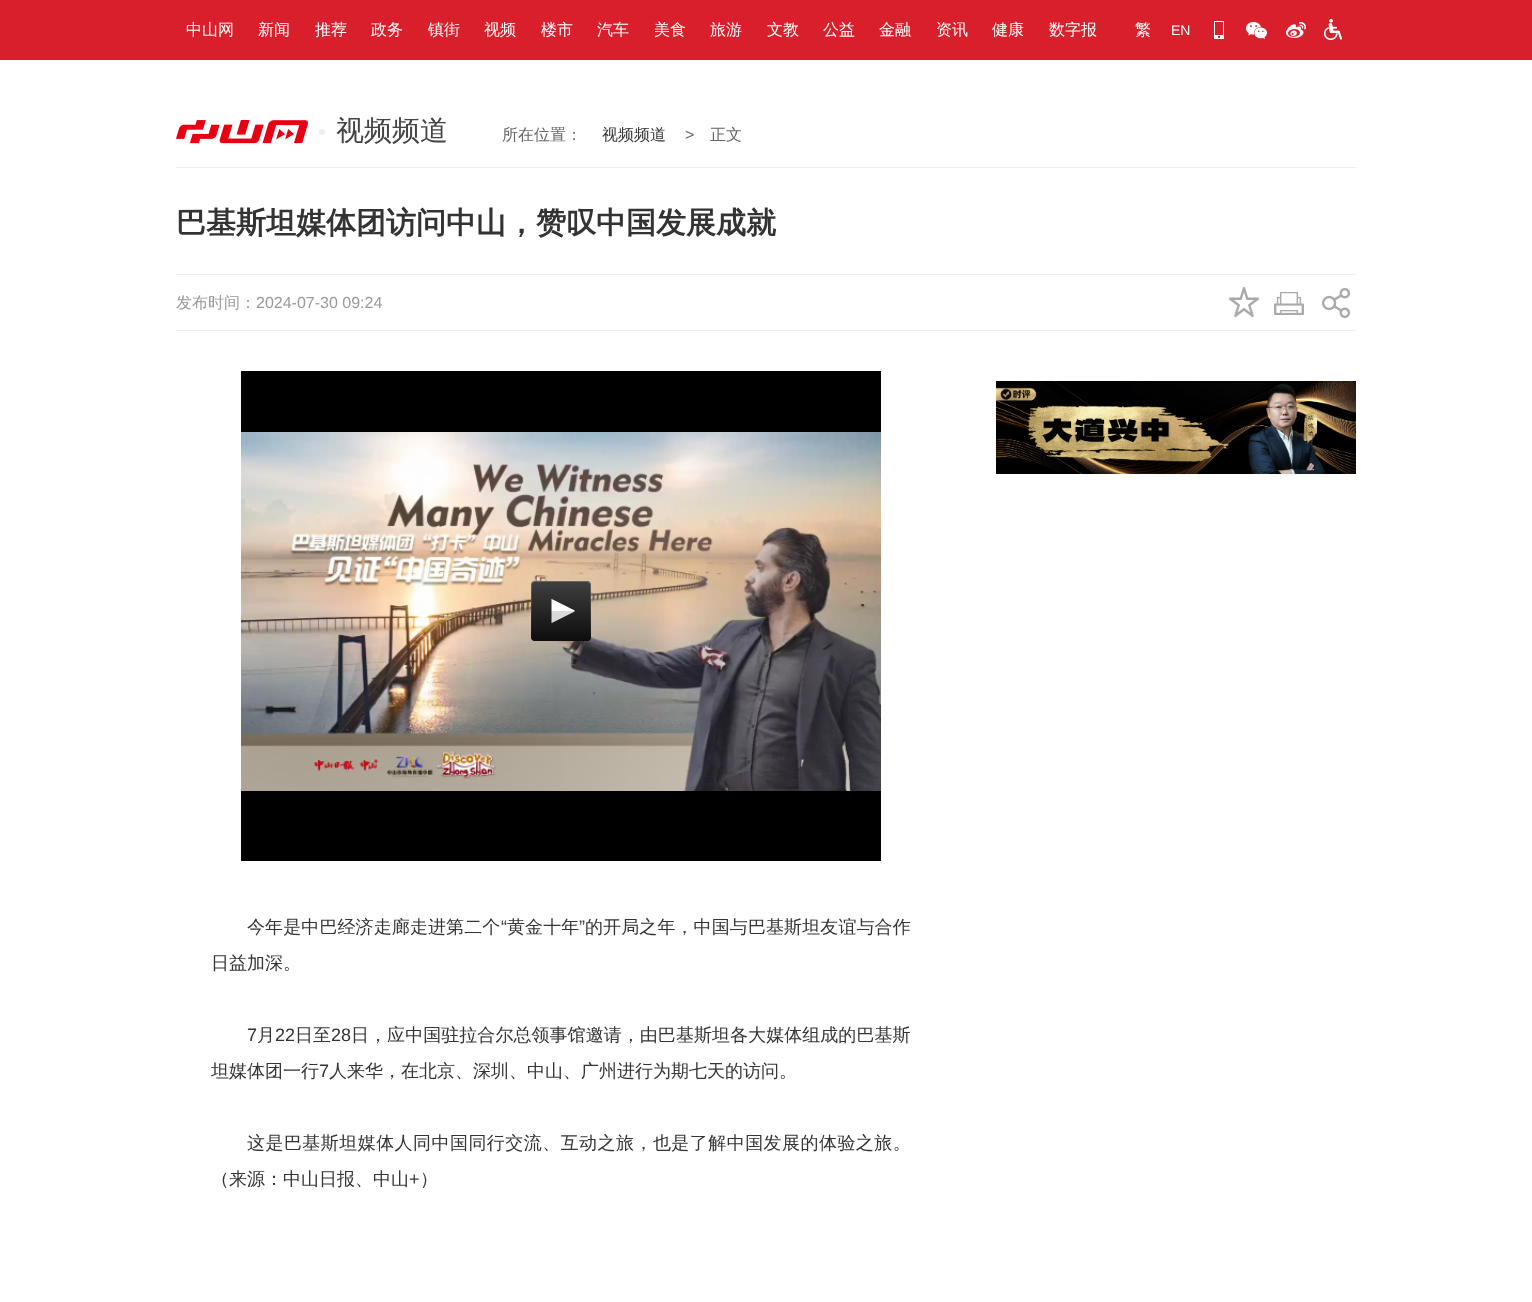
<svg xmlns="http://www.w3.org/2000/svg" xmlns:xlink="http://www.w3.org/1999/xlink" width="1532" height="1302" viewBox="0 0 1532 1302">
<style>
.cls-1{font:500 16px WenQuanYi Zen Hei;fill:#ffffff}
.cls-2{font:14px Liberation Sans;fill:#ffffff}
.cls-3{font:500 28px WenQuanYi Zen Hei;fill:#444444}
.cls-4{font:500 16px WenQuanYi Zen Hei;fill:#666666}
.cls-5{font:500 16px WenQuanYi Zen Hei;fill:#333333}
.cls-6{font:16px Liberation Sans;fill:#666666}
.cls-7{font:bold 30px WenQuanYi Zen Hei;fill:#333333}
.cls-8{font:500 16px WenQuanYi Zen Hei;fill:#999999}
.cls-9{font:16px Liberation Sans;fill:#999999}
.cls-10{font:500 18px WenQuanYi Zen Hei;letter-spacing:0.1px;fill:#333333}
.cls-11{font:18px Liberation Sans;letter-spacing:0.1px;fill:#333333}
.cls-12{font:500 18px WenQuanYi Zen Hei;fill:#333333}
.cls-13{font:18px Liberation Sans;letter-spacing:0.05px;fill:#333333}
.cls-14{font:500 18px WenQuanYi Zen Hei;letter-spacing:0.05px;fill:#333333}
.cls-15{font:18px Liberation Sans;fill:#333333}
.cls-16{font:500 18px WenQuanYi Zen Hei;letter-spacing:0.45px;fill:#333333}
</style>
<rect width="100%" height="100%" fill="#ffffff"/>
<rect fill="#d91f2b" x="0" y="0" width="1532" height="60"/>
<image xlink:href="image0.png" x="1214" y="21" width="10" height="18"/>
<image xlink:href="image1.png" x="1246" y="22" width="21" height="17"/>
<image xlink:href="image2.png" x="1286" y="22" width="20" height="16"/>
<image xlink:href="image3.png" x="1324" y="19" width="18" height="21"/>
<image xlink:href="image4.png" x="176" y="120" width="149" height="24"/>
<rect fill="#efefef" x="176" y="167" width="1180" height="1"/>
<rect fill="#eeeeee" x="176" y="274" width="1180" height="1"/>
<rect fill="#eeeeee" x="176" y="330" width="1180" height="1"/>
<image xlink:href="image5.png" x="1229" y="287" width="30" height="30"/>
<image xlink:href="image6.png" x="1274" y="292" width="30" height="23"/>
<image xlink:href="image7.png" x="1322" y="288" width="28" height="30"/>
<image xlink:href="image8.png" x="996" y="381" width="360" height="93"/>
<image xlink:href="image9.png" x="241" y="371" width="640" height="490"/>
<text class="cls-1" x="186" y="35">中山网</text>
<text class="cls-1" x="258" y="35">新闻</text>
<text class="cls-1" x="315" y="35">推荐</text>
<text class="cls-1" x="371" y="35">政务</text>
<text class="cls-1" x="428" y="35">镇街</text>
<text class="cls-1" x="484" y="35">视频</text>
<text class="cls-1" x="541" y="35">楼市</text>
<text class="cls-1" x="597" y="35">汽车</text>
<text class="cls-1" x="654" y="35">美食</text>
<text class="cls-1" x="710" y="35">旅游</text>
<text class="cls-1" x="767" y="35">文教</text>
<text class="cls-1" x="823" y="35">公益</text>
<text class="cls-1" x="879" y="35">金融</text>
<text class="cls-1" x="936" y="35">资讯</text>
<text class="cls-1" x="992" y="35">健康</text>
<text class="cls-1" x="1049" y="35">数字报</text>
<text class="cls-1" x="1135" y="35">繁</text>
<text class="cls-2" x="1171" y="35">EN</text>
<text class="cls-3" x="336" y="140">视频频道</text>
<text class="cls-4" x="502" y="140">所在位置：</text>
<text class="cls-5" x="602" y="140">视频频道</text>
<text class="cls-6" x="685" y="140">&gt;</text>
<text class="cls-4" x="710" y="140">正文</text>
<text class="cls-7" x="176" y="233">巴基斯坦媒体团访问中山，赞叹中国发展成就</text>
<text class="cls-8" x="176" y="308">发布时间：</text>
<text class="cls-9" x="256" y="308">2024-07-30 09:24</text>
<text class="cls-10" x="247" y="933">今年是中巴经济走廊走进第二个</text>
<text class="cls-11" x="501" y="933">“</text>
<text class="cls-10" x="507" y="933">黄金十年</text>
<text class="cls-11" x="579" y="933">”</text>
<text class="cls-10" x="585" y="933">的开局之年，中国与巴基斯坦友谊与合作</text>
<text class="cls-12" x="211" y="969">日益加深。</text>
<text class="cls-13" x="247" y="1041">7</text>
<text class="cls-14" x="257" y="1041">月</text>
<text class="cls-13" x="275" y="1041">22</text>
<text class="cls-14" x="295" y="1041">日至</text>
<text class="cls-13" x="331" y="1041">28</text>
<text class="cls-14" x="351" y="1041">日，应中国驻拉合尔总领事馆邀请，由巴基斯坦各大媒体组成的巴基斯</text>
<text class="cls-12" x="211" y="1077">坦媒体团一行</text>
<text class="cls-15" x="319" y="1077">7</text>
<text class="cls-12" x="329" y="1077">人来华，在北京、深圳、中山、广州进行为期七天的访问。</text>
<text class="cls-16" x="247" y="1149">这是巴基斯坦媒体人同中国同行交流、互动之旅，也是了解中国发展的体验之旅。</text>
<text class="cls-12" x="211" y="1185">（来源：中山日报、中山</text>
<text class="cls-15" x="409" y="1185">+</text>
<text class="cls-12" x="420" y="1185">）</text>
</svg>
